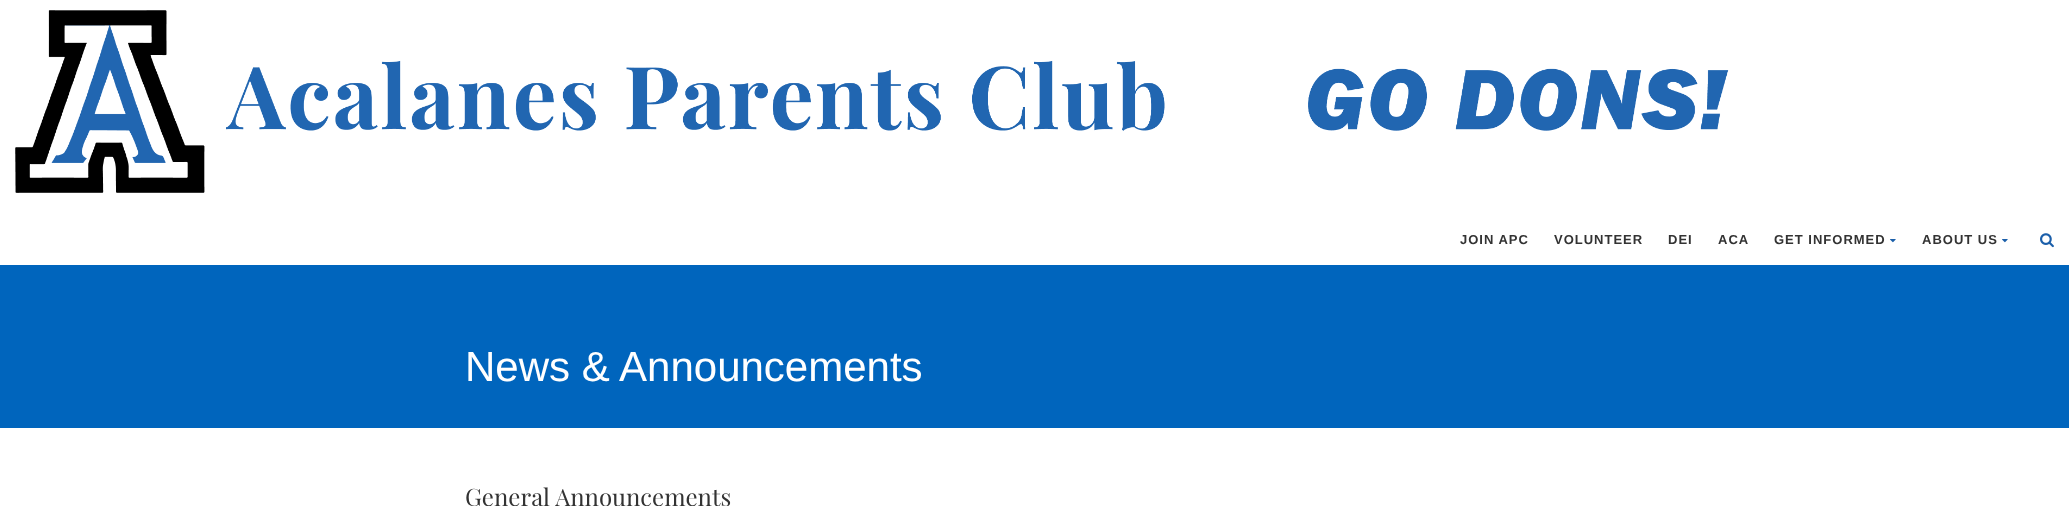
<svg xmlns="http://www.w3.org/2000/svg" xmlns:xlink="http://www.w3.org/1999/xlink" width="2069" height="506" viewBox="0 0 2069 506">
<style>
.cls-1{font:bold 13px Liberation Sans;letter-spacing:1px;fill:#333333}
.cls-2{font:42px Liberation Sans;fill:#ffffff}
.cls-3{font:24px Playfair Display;fill:#333333}
</style>
<rect width="100%" height="100%" fill="#ffffff"/>
<image xlink:href="image0.png" x="15" y="10" width="1714" height="183"/>
<image xlink:href="image1.png" x="1890" y="239" width="6" height="4"/>
<image xlink:href="image1.png" x="2002" y="239" width="6" height="4"/>
<image xlink:href="image2.png" x="2040" y="233" width="14" height="15"/>
<rect fill="#0065bd" x="0" y="265" width="2069" height="163"/>
<text class="cls-1" x="1460" y="244">JOIN APC</text>
<text class="cls-1" x="1554" y="244">VOLUNTEER</text>
<text class="cls-1" x="1668" y="244">DEI</text>
<text class="cls-1" x="1718" y="244">ACA</text>
<text class="cls-1" x="1774" y="244">GET INFORMED</text>
<text class="cls-1" x="1922" y="244">ABOUT US</text>
<text class="cls-2" x="465" y="381">News &amp; Announcements</text>
<text class="cls-3" x="465" y="506">General Announcements</text>
</svg>
